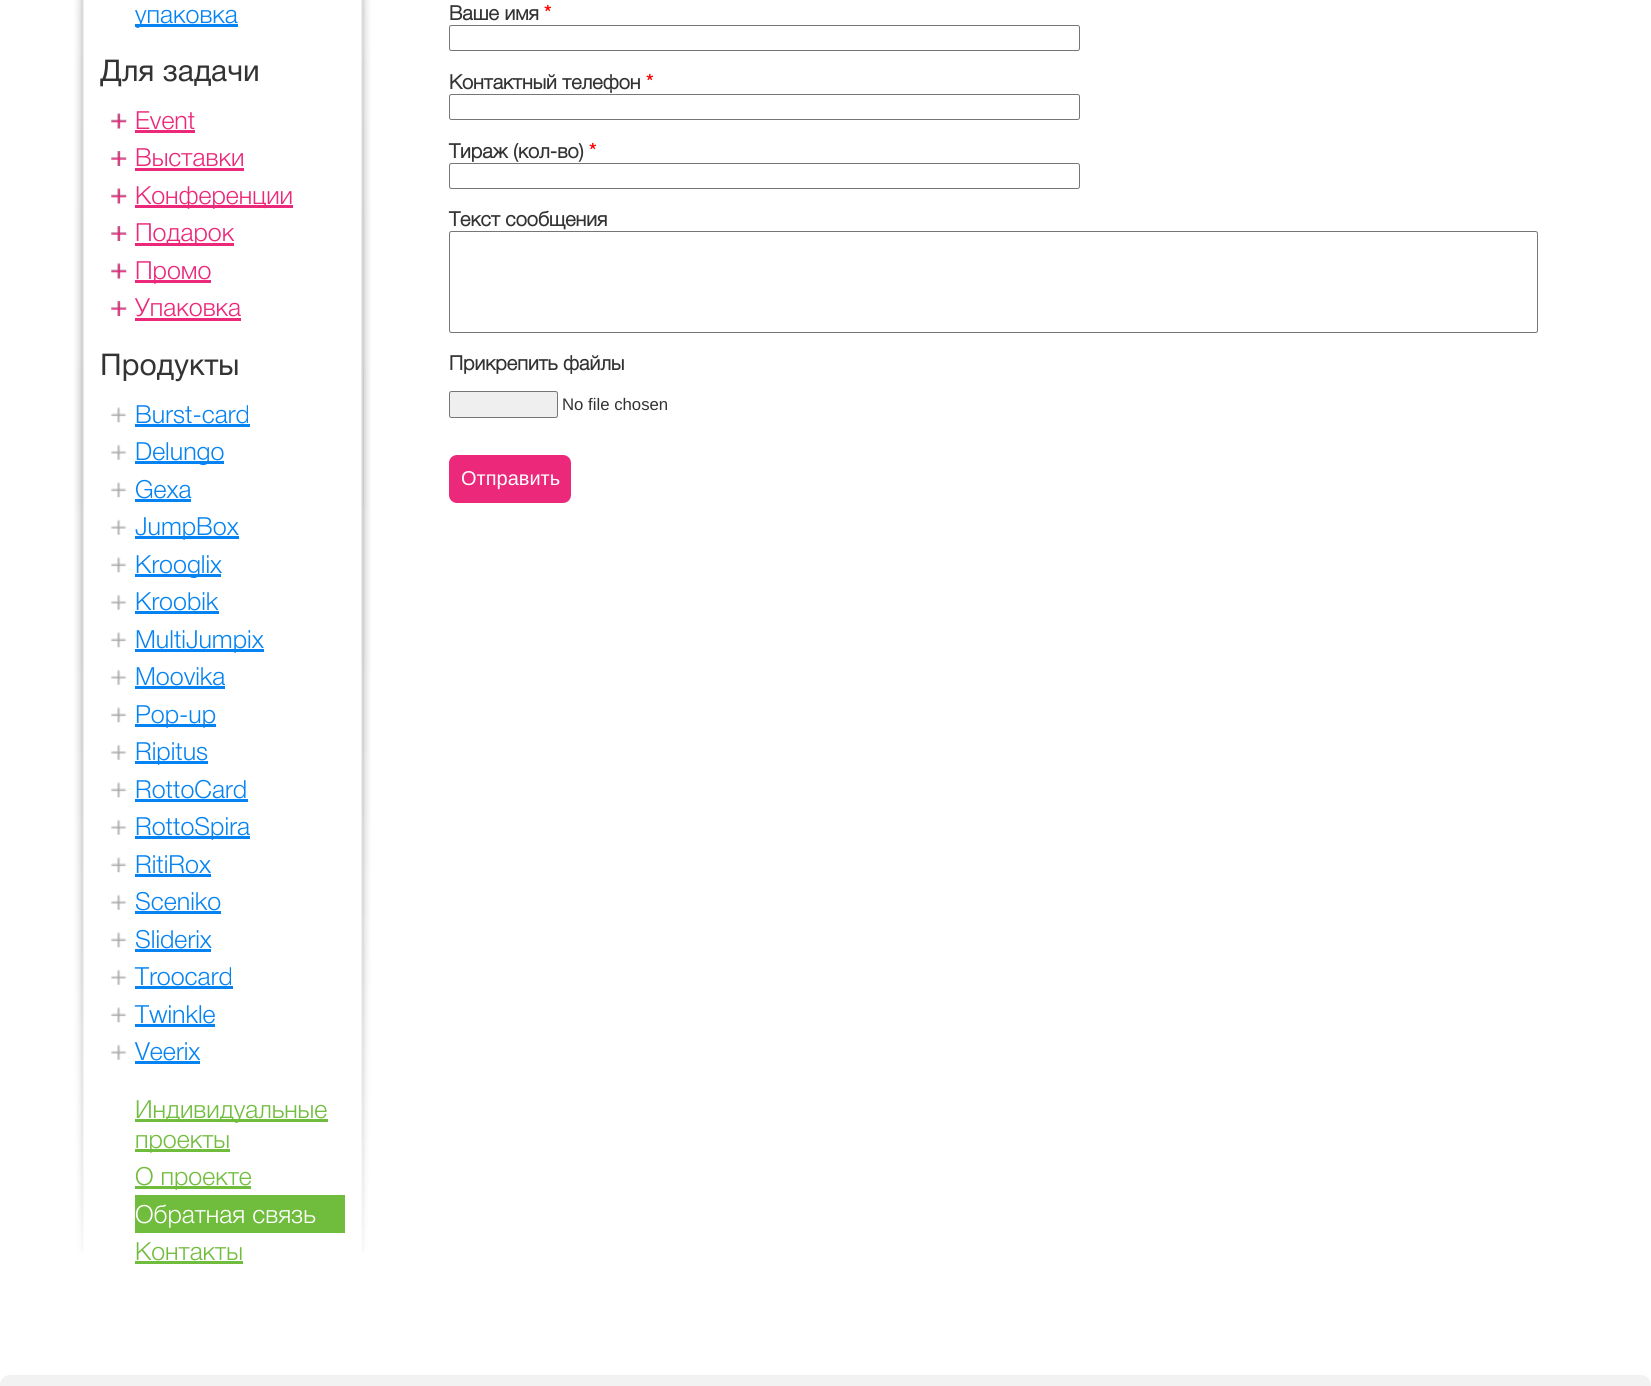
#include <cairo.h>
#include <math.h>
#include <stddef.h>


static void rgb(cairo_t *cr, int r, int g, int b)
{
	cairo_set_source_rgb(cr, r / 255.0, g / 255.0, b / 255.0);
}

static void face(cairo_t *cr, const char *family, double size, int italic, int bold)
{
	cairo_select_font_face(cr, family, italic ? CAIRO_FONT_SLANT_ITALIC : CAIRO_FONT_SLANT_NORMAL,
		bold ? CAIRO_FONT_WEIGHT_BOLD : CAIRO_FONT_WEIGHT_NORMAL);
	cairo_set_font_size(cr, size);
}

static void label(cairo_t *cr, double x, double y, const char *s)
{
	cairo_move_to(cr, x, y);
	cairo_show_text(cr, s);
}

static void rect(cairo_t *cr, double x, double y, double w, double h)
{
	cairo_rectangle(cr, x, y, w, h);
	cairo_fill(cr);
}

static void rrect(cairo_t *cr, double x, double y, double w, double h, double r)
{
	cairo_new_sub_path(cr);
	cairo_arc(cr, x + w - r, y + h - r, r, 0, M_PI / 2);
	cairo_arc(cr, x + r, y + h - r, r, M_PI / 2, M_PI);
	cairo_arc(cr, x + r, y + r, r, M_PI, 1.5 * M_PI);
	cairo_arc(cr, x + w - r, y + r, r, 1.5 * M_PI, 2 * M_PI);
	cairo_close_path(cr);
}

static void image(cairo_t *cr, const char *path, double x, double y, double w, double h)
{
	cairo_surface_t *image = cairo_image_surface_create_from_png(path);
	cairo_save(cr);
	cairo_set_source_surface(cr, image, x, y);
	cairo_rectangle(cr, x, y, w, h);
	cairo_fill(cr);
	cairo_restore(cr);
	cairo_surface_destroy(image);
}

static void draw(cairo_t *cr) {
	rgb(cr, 255, 255, 255);
	cairo_paint(cr);
	image(cr, "image0.png", 74, 0, 297, 1252);
	rgb(cr, 5, 131, 242);
	rect(cr, 135, 24, 103, 3);
	face(cr, "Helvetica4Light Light", 25, 0, 0);
	label(cr, 135, 23, "упаковка");
	face(cr, "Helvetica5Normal", 30, 0, 0);
	rgb(cr, 51, 51, 51);
	label(cr, 100, 81, "Для задачи");
	image(cr, "image1.png", 111, 113, 16, 16);
	face(cr, "Helvetica4Light Light", 25, 0, 0);
	rgb(cr, 235, 40, 122);
	label(cr, 135, 129, "Event");
	rect(cr, 135, 130, 60, 3);
	image(cr, "image2.png", 111, 151, 16, 15);
	label(cr, 135, 166, "Выставки");
	rect(cr, 135, 168, 109, 3);
	image(cr, "image1.png", 111, 188, 16, 16);
	rect(cr, 135, 205, 158, 3);
	label(cr, 135, 204, "Конференции");
	image(cr, "image2.png", 111, 226, 16, 15);
	rect(cr, 135, 243, 99, 3);
	label(cr, 135, 241, "Подарок");
	image(cr, "image1.png", 111, 263, 16, 16);
	rect(cr, 135, 280, 76, 3);
	label(cr, 135, 279, "Промо");
	image(cr, "image2.png", 111, 301, 16, 15);
	label(cr, 135, 316, "Упаковка");
	rect(cr, 135, 318, 106, 3);
	face(cr, "Helvetica5Normal", 30, 0, 0);
	rgb(cr, 51, 51, 51);
	label(cr, 100, 375, "Продукты");
	image(cr, "image3.png", 111, 407, 16, 16);
	face(cr, "Helvetica4Light Light", 25, 0, 0);
	rgb(cr, 5, 131, 242);
	label(cr, 135, 423, "Burst-card");
	rect(cr, 135, 424, 115, 3);
	image(cr, "image4.png", 111, 444, 16, 16);
	rect(cr, 135, 461, 89, 3);
	label(cr, 135, 460, "Delungo");
	image(cr, "image3.png", 111, 482, 16, 16);
	label(cr, 135, 498, "Gexa");
	rect(cr, 135, 499, 56, 3);
	image(cr, "image5.png", 111, 519, 16, 16);
	rect(cr, 135, 536, 104, 3);
	label(cr, 135, 535, "JumpBox");
	image(cr, "image3.png", 111, 557, 16, 16);
	rect(cr, 135, 574, 86, 3);
	label(cr, 135, 573, "Krooglix");
	image(cr, "image4.png", 111, 594, 16, 16);
	label(cr, 135, 610, "Kroobik");
	rect(cr, 135, 611, 84, 3);
	image(cr, "image3.png", 111, 632, 16, 16);
	rect(cr, 135, 649, 129, 3);
	label(cr, 135, 648, "MultiJumpix");
	image(cr, "image4.png", 111, 669, 16, 16);
	label(cr, 135, 685, "Moovika");
	rect(cr, 135, 686, 90, 3);
	image(cr, "image3.png", 111, 707, 16, 16);
	rect(cr, 135, 724, 81, 3);
	label(cr, 135, 723, "Pop-up");
	image(cr, "image4.png", 111, 744, 16, 16);
	rect(cr, 135, 761, 73, 3);
	label(cr, 135, 760, "Ripitus");
	image(cr, "image3.png", 111, 782, 16, 16);
	label(cr, 135, 798, "RottoCard");
	rect(cr, 135, 799, 113, 3);
	image(cr, "image4.png", 111, 819, 16, 16);
	rect(cr, 135, 836, 115, 3);
	label(cr, 135, 835, "RottoSpira");
	image(cr, "image3.png", 111, 857, 16, 16);
	label(cr, 135, 873, "RitiRox");
	rect(cr, 135, 874, 76, 3);
	image(cr, "image4.png", 111, 894, 16, 16);
	label(cr, 135, 910, "Sceniko");
	rect(cr, 135, 911, 86, 3);
	image(cr, "image3.png", 111, 932, 16, 16);
	label(cr, 135, 948, "Sliderix");
	rect(cr, 135, 949, 76, 3);
	image(cr, "image4.png", 111, 969, 16, 16);
	label(cr, 135, 985, "Troocard");
	rect(cr, 135, 986, 98, 3);
	image(cr, "image3.png", 111, 1007, 16, 16);
	label(cr, 135, 1023, "Twinkle");
	rect(cr, 135, 1024, 80, 3);
	image(cr, "image4.png", 111, 1044, 16, 16);
	label(cr, 135, 1060, "Veerix");
	rect(cr, 135, 1061, 65, 3);
	rgb(cr, 112, 188, 60);
	rect(cr, 135, 1119, 193, 3);
	label(cr, 135, 1118, "Индивидуальные");
	rect(cr, 135, 1149, 95, 3);
	label(cr, 135, 1148, "проекты");
	rect(cr, 135, 1186, 116, 3);
	label(cr, 135, 1185, "О проекте");
	rect(cr, 135, 1195, 210, 38);
	rgb(cr, 255, 255, 255);
	label(cr, 135, 1223, "Обратная связь");
	rgb(cr, 112, 188, 60);
	label(cr, 135, 1260, "Контакты");
	rect(cr, 135, 1261, 108, 3);
	face(cr, "Helvetica4Light", 20, 0, 1);
	rgb(cr, 51, 51, 51);
	label(cr, 449, 20, "Ваше имя");
	rgb(cr, 255, 0, 0);
	label(cr, 544, 20, "*");
	rrect(cr, 449.5, 25.5, 630, 25, 2);
	rgb(cr, 118, 118, 118);
	cairo_set_line_width(cr, 1);
	cairo_stroke(cr);
	rgb(cr, 51, 51, 51);
	label(cr, 449, 89, "Контактный телефон");
	rgb(cr, 255, 0, 0);
	label(cr, 646, 89, "*");
	rrect(cr, 449.5, 94.5, 630, 25, 2);
	rgb(cr, 118, 118, 118);
	cairo_stroke(cr);
	rgb(cr, 51, 51, 51);
	label(cr, 449, 158, "Тираж (кол-во)");
	rgb(cr, 255, 0, 0);
	label(cr, 589, 158, "*");
	rrect(cr, 449.5, 163.5, 630, 25, 2);
	rgb(cr, 118, 118, 118);
	cairo_stroke(cr);
	rgb(cr, 51, 51, 51);
	label(cr, 449, 226, "Текст сообщения");
	rrect(cr, 449.5, 231.5, 1088, 101, 2);
	rgb(cr, 118, 118, 118);
	cairo_stroke(cr);
	rgb(cr, 51, 51, 51);
	label(cr, 449, 370, "Прикрепить файлы");
	rgb(cr, 239, 239, 239);
	rrect(cr, 449.5, 391.5, 108, 26, 2);
	cairo_fill_preserve(cr);
	rgb(cr, 118, 118, 118);
	cairo_stroke(cr);
	face(cr, "Liberation Sans", 16.75, 0, 0);
	rgb(cr, 51, 51, 51);
	label(cr, 562, 410, "No file chosen");
	rgb(cr, 235, 40, 122);
	rrect(cr, 449, 455, 122, 48, 8);
	cairo_fill(cr);
	face(cr, "Liberation Sans", 20, 0, 0);
	rgb(cr, 255, 255, 255);
	label(cr, 461, 485, "Отправить");
	rgb(cr, 242, 242, 242);
	rrect(cr, 0, 1375, 1651, 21, 10);
	cairo_fill(cr);
}

int main(void) {
	cairo_surface_t *surface = cairo_image_surface_create(CAIRO_FORMAT_RGB24, 1651, 1386);
	cairo_t *cr = cairo_create(surface);
	cairo_font_options_t *options = cairo_font_options_create();
	cairo_font_options_set_hint_metrics(options, CAIRO_HINT_METRICS_OFF);
	cairo_font_options_set_hint_style(options, CAIRO_HINT_STYLE_NONE);
	cairo_set_font_options(cr, options);
	cairo_set_miter_limit(cr, 4);
	draw(cr);
	cairo_surface_write_to_png(surface, "render.png");
	cairo_font_options_destroy(options);
	cairo_destroy(cr);
	cairo_surface_destroy(surface);
	return 0;
}
